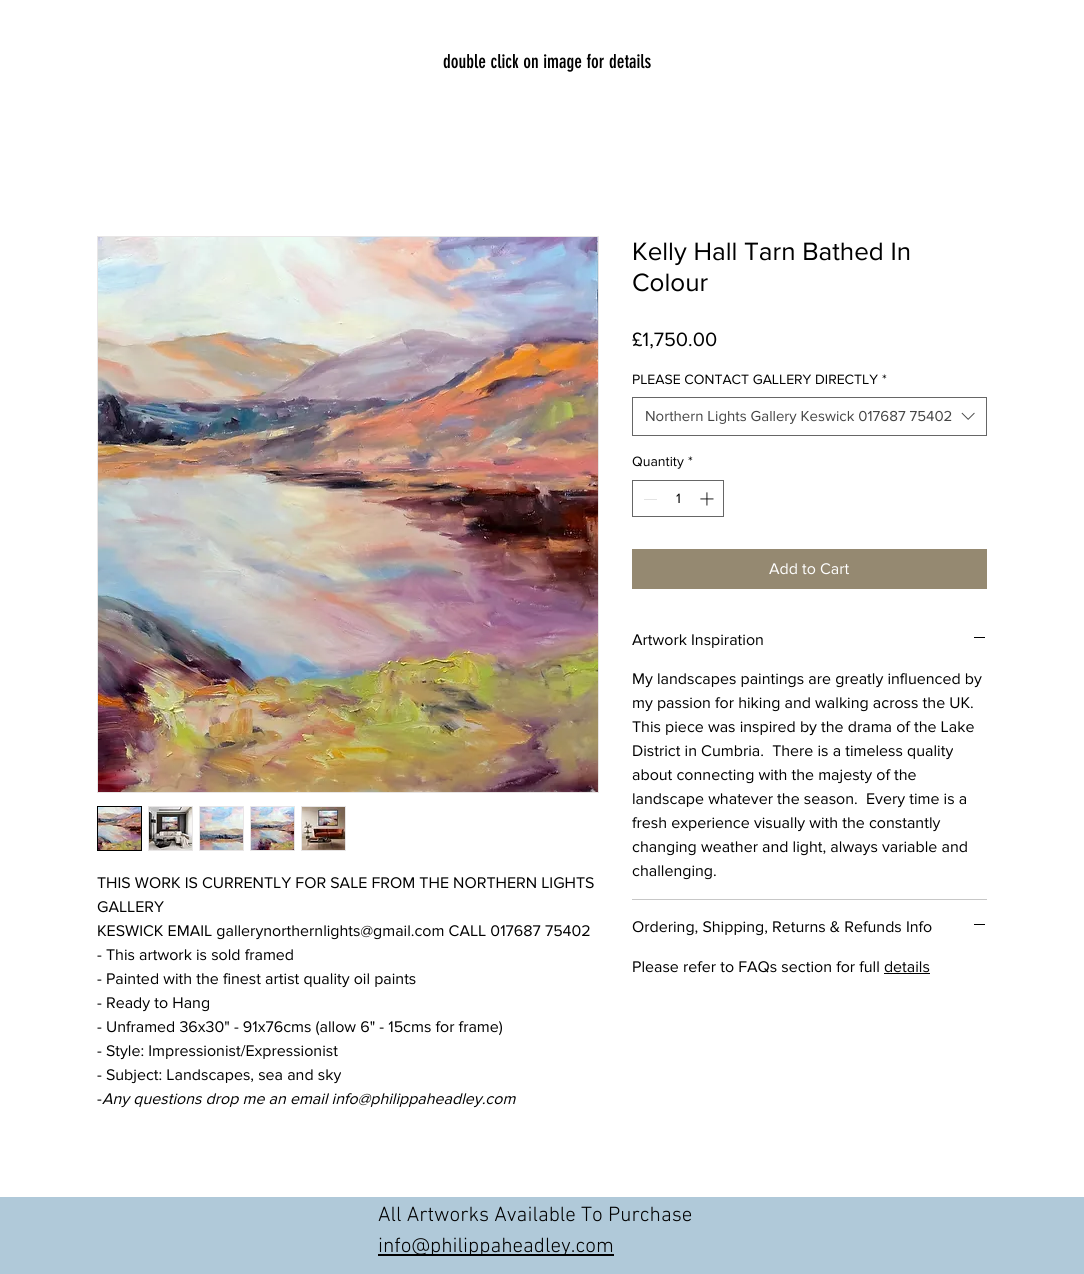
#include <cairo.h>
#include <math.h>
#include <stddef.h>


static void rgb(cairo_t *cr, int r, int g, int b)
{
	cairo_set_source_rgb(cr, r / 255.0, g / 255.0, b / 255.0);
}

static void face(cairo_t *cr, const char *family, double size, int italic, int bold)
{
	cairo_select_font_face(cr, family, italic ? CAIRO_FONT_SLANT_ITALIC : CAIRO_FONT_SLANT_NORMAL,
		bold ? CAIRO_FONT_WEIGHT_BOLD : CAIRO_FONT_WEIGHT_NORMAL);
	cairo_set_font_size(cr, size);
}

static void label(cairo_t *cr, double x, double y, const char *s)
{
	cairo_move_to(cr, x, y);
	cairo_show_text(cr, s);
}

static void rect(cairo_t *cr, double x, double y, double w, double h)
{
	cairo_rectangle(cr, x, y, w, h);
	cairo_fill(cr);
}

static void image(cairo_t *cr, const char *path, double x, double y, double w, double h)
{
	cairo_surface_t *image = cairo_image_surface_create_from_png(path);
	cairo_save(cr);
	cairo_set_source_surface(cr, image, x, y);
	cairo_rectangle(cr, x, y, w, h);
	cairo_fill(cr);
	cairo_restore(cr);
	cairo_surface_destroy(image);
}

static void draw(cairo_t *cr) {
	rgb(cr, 255, 255, 255);
	cairo_paint(cr);
	face(cr, "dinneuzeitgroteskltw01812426", 19, 0, 0);
	rgb(cr, 0, 0, 0);
	label(cr, 443, 68, "double click on image for details");
	cairo_rectangle(cr, 97.5, 236.5, 501, 556);
	rgb(cr, 232, 230, 230);
	cairo_set_line_width(cr, 1);
	cairo_stroke(cr);
	image(cr, "image0.png", 98, 237, 500, 555);
	cairo_rectangle(cr, 97.5, 806.5, 44, 44);
	rgb(cr, 0, 0, 0);
	cairo_stroke(cr);
	image(cr, "image1.png", 98, 807, 43, 43);
	rgb(cr, 232, 230, 230);
	rect(cr, 148, 806, 45, 45);
	image(cr, "image2.png", 149, 807, 43, 43);
	rect(cr, 199, 806, 45, 45);
	image(cr, "image3.png", 200, 807, 43, 43);
	rect(cr, 250, 806, 45, 45);
	image(cr, "image4.png", 251, 807, 43, 43);
	rect(cr, 301, 806, 45, 45);
	image(cr, "image5.png", 302, 807, 43, 43);
	face(cr, "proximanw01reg", 16, 0, 0);
	rgb(cr, 0, 0, 0);
	label(cr, 97, 888, "THIS WORK IS CURRENTLY FOR SALE FROM THE NORTHERN LIGHTS");
	label(cr, 97, 912, "GALLERY");
	label(cr, 97, 936, "KESWICK EMAIL gallerynorthernlights@gmail.com CALL 017687 75402");
	label(cr, 97, 960, "- This artwork is sold framed");
	label(cr, 97, 984, "- Painted with the finest artist quality oil paints");
	label(cr, 97, 1008, "- Ready to Hang");
	label(cr, 97, 1032, "- Unframed 36x30\" - 91x76cms (allow 6\" - 15cms for frame)");
	label(cr, 97, 1056, "- Style: Impressionist/Expressionist");
	label(cr, 97, 1080, "- Subject: Landscapes, sea and sky");
	label(cr, 97, 1104, "-");
	face(cr, "proximanw01reg", 16, 1, 0);
	label(cr, 102, 1104, "Any questions drop me an email info@philippaheadley.com");
	face(cr, "proximanw01reg", 26, 0, 0);
	label(cr, 632, 260, "Kelly Hall Tarn Bathed In");
	label(cr, 632, 291, "Colour");
	face(cr, "proximanw01reg", 20, 0, 0);
	label(cr, 632, 346, "£1,750.00");
	face(cr, "proximanw01reg", 14, 0, 0);
	label(cr, 632, 384, "PLEASE CONTACT GALLERY DIRECTLY");
	label(cr, 882, 384, "*");
	cairo_rectangle(cr, 632.5, 397.5, 354, 38);
	rgb(cr, 102, 102, 102);
	cairo_stroke(cr);
	face(cr, "proximanw01reg", 15, 0, 0);
	rgb(cr, 68, 68, 68);
	label(cr, 645, 421, "Northern Lights Gallery Keswick 017687 75402");
	image(cr, "image6.png", 961, 412, 14, 8);
	face(cr, "proximanw01reg", 14, 0, 0);
	rgb(cr, 0, 0, 0);
	label(cr, 632, 466, "Quantity");
	label(cr, 688, 466, "*");
	cairo_rectangle(cr, 632.5, 480.5, 91, 36);
	rgb(cr, 102, 102, 102);
	cairo_stroke(cr);
	rgb(cr, 227, 227, 227);
	rect(cr, 644, 499, 13, 1);
	rgb(cr, 0, 0, 0);
	label(cr, 676, 503, "1");
	image(cr, "image7.png", 700, 492, 14, 14);
	rgb(cr, 149, 137, 113);
	rect(cr, 632, 549, 355, 40);
	face(cr, "proximanw01reg", 16, 0, 0);
	rgb(cr, 255, 255, 255);
	label(cr, 769, 574, "Add to Cart");
	rgb(cr, 199, 199, 199);
	rect(cr, 632, 899, 355, 1);
	rgb(cr, 0, 0, 0);
	label(cr, 632, 645, "Artwork Inspiration");
	rect(cr, 974, 637, 11, 1);
	label(cr, 632, 684, "My landscapes paintings are greatly influenced by");
	label(cr, 632, 708, "my passion for hiking and walking across the UK.");
	label(cr, 632, 732, "This piece was inspired by the drama of the Lake");
	label(cr, 632, 756, "District in Cumbria.  There is a timeless quality");
	label(cr, 632, 780, "about connecting with the majesty of the");
	label(cr, 632, 804, "landscape whatever the season.  Every time is a");
	label(cr, 632, 828, "fresh experience visually with the constantly");
	label(cr, 632, 852, "changing weather and light, always variable and");
	label(cr, 632, 876, "challenging.");
	label(cr, 632, 932, "Ordering, Shipping, Returns & Refunds Info");
	rect(cr, 974, 924, 11, 1);
	label(cr, 632, 972, "Please refer to FAQs section for full details");
	rect(cr, 884, 973, 46, 1);
	rgb(cr, 176, 201, 217);
	rect(cr, 0, 1197, 1084, 77);
	face(cr, "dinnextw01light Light", 21, 0, 0);
	rgb(cr, 0, 0, 0);
	label(cr, 378, 1221, "All Artworks Available To Purchase");
	rect(cr, 378, 1254, 236, 2);
	label(cr, 378, 1252, "info@philippaheadley.com");
}

int main(void) {
	cairo_surface_t *surface = cairo_image_surface_create(CAIRO_FORMAT_RGB24, 1084, 1274);
	cairo_t *cr = cairo_create(surface);
	cairo_font_options_t *options = cairo_font_options_create();
	cairo_font_options_set_hint_metrics(options, CAIRO_HINT_METRICS_OFF);
	cairo_font_options_set_hint_style(options, CAIRO_HINT_STYLE_NONE);
	cairo_set_font_options(cr, options);
	cairo_set_miter_limit(cr, 4);
	draw(cr);
	cairo_surface_write_to_png(surface, "render.png");
	cairo_font_options_destroy(options);
	cairo_destroy(cr);
	cairo_surface_destroy(surface);
	return 0;
}
